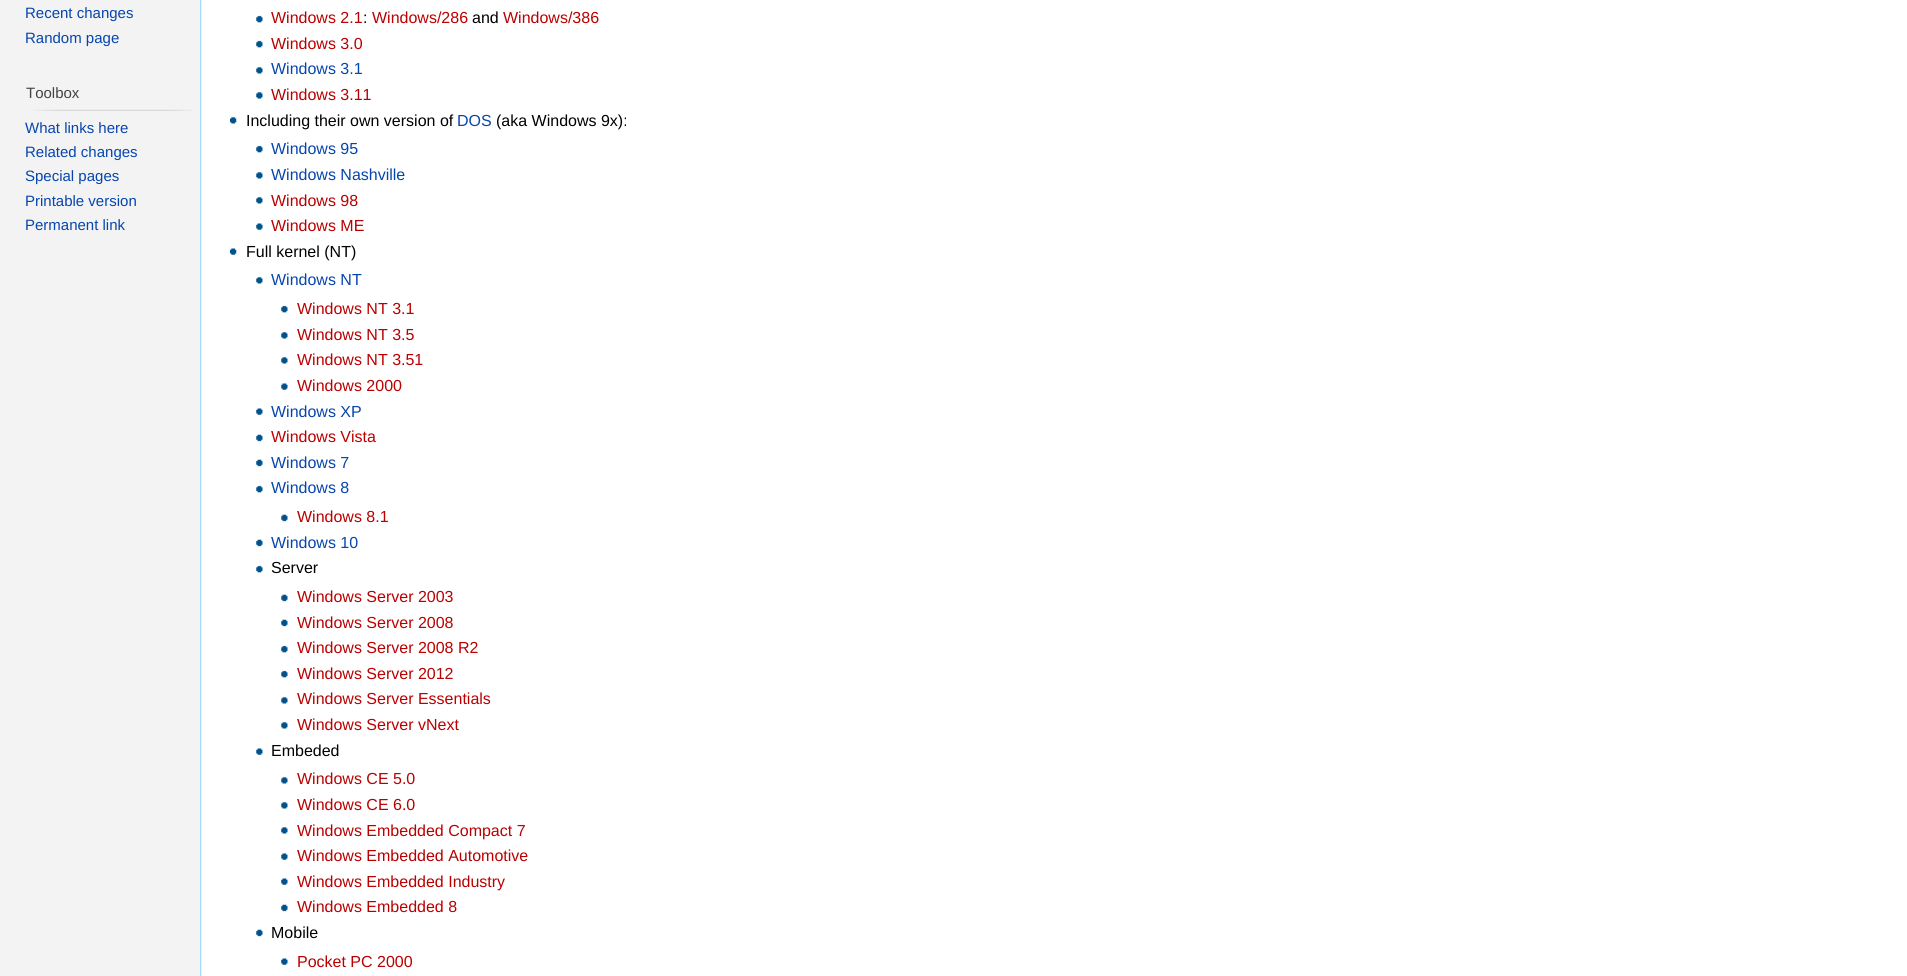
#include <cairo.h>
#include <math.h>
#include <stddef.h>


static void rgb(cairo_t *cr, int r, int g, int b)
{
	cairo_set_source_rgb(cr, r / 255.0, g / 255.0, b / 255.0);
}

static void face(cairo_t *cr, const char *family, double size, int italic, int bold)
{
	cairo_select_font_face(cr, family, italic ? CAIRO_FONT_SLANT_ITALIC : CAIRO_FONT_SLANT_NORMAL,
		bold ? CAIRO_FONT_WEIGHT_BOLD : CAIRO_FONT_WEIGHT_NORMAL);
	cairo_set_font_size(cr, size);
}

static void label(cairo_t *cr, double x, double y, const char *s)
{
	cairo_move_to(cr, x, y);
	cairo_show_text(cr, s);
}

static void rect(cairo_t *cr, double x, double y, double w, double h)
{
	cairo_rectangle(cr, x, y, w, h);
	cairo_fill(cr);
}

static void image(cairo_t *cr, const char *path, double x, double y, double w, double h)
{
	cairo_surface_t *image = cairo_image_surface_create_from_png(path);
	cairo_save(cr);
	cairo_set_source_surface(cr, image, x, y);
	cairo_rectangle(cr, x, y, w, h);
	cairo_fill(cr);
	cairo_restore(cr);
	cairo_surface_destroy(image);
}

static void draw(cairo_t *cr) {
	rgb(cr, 243, 243, 243);
	cairo_paint(cr);
	face(cr, "Liberation Sans", 15, 0, 0);
	rgb(cr, 6, 69, 173);
	label(cr, 25, 18, "Recent changes");
	label(cr, 25, 43, "Random page");
	rgb(cr, 68, 68, 68);
	label(cr, 26, 98, "Toolbox");
	image(cr, "image0.png", 33, 109, 160, 2);
	rgb(cr, 6, 69, 173);
	label(cr, 25, 133, "What links here");
	label(cr, 25, 157, "Related changes");
	label(cr, 25, 181, "Special pages");
	label(cr, 25, 206, "Printable version");
	label(cr, 25, 230, "Permanent link");
	rgb(cr, 255, 255, 255);
	rect(cr, 201, 0, 1706, 976);
	image(cr, "image1.png", 200, 0, 2, 976);
	image(cr, "image2.png", 256, 15, 7, 8);
	face(cr, "Liberation Sans", 16, 0, 0);
	rgb(cr, 186, 0, 0);
	label(cr, 271, 23, "Windows 2.1");
	rgb(cr, 0, 0, 0);
	label(cr, 363, 23, ":");
	rgb(cr, 186, 0, 0);
	label(cr, 372, 23, "Windows/286");
	rgb(cr, 0, 0, 0);
	label(cr, 472, 23, "and");
	rgb(cr, 186, 0, 0);
	label(cr, 503, 23, "Windows/386");
	image(cr, "image2.png", 256, 40, 7, 8);
	label(cr, 271, 49, "Windows 3.0");
	image(cr, "image3.png", 256, 67, 7, 7);
	rgb(cr, 6, 69, 173);
	label(cr, 271, 74, "Windows 3.1");
	image(cr, "image4.png", 256, 92, 7, 7);
	rgb(cr, 186, 0, 0);
	label(cr, 271, 100, "Windows 3.11");
	image(cr, "image5.png", 230, 117, 7, 7);
	rgb(cr, 0, 0, 0);
	label(cr, 246, 126, "Including their own version of");
	rgb(cr, 6, 69, 173);
	label(cr, 457, 126, "DOS");
	rgb(cr, 0, 0, 0);
	label(cr, 496, 126, "(aka Windows 9x):");
	image(cr, "image2.png", 256, 145, 7, 8);
	rgb(cr, 6, 69, 173);
	label(cr, 271, 154, "Windows 95");
	image(cr, "image3.png", 256, 172, 7, 7);
	label(cr, 271, 180, "Windows Nashville");
	image(cr, "image3.png", 256, 197, 7, 7);
	rgb(cr, 186, 0, 0);
	label(cr, 271, 206, "Windows 98");
	image(cr, "image6.png", 256, 223, 7, 7);
	label(cr, 271, 231, "Windows ME");
	image(cr, "image7.png", 230, 248, 7, 7);
	rgb(cr, 0, 0, 0);
	label(cr, 246, 257, "Full kernel (NT)");
	image(cr, "image3.png", 256, 277, 7, 7);
	rgb(cr, 6, 69, 173);
	label(cr, 271, 285, "Windows NT");
	image(cr, "image8.png", 281, 305, 7, 8);
	rgb(cr, 186, 0, 0);
	label(cr, 297, 314, "Windows NT 3.1");
	image(cr, "image9.png", 281, 332, 7, 7);
	label(cr, 297, 340, "Windows NT 3.5");
	image(cr, "image9.png", 281, 357, 7, 7);
	label(cr, 297, 365, "Windows NT 3.51");
	image(cr, "image10.png", 281, 383, 7, 7);
	label(cr, 297, 391, "Windows 2000");
	image(cr, "image6.png", 256, 408, 7, 7);
	rgb(cr, 6, 69, 173);
	label(cr, 271, 417, "Windows XP");
	image(cr, "image11.png", 256, 434, 7, 8);
	rgb(cr, 186, 0, 0);
	label(cr, 271, 442, "Windows Vista");
	image(cr, "image11.png", 256, 459, 7, 8);
	rgb(cr, 6, 69, 173);
	label(cr, 271, 468, "Windows 7");
	image(cr, "image2.png", 256, 485, 7, 8);
	label(cr, 271, 493, "Windows 8");
	image(cr, "image12.png", 281, 514, 7, 8);
	rgb(cr, 186, 0, 0);
	label(cr, 297, 522, "Windows 8.1");
	image(cr, "image11.png", 256, 539, 7, 8);
	rgb(cr, 6, 69, 173);
	label(cr, 271, 548, "Windows 10");
	image(cr, "image2.png", 256, 565, 7, 8);
	rgb(cr, 0, 0, 0);
	label(cr, 271, 573, "Server");
	image(cr, "image12.png", 281, 594, 7, 8);
	rgb(cr, 186, 0, 0);
	label(cr, 297, 602, "Windows Server 2003");
	image(cr, "image12.png", 281, 619, 7, 8);
	label(cr, 297, 628, "Windows Server 2008");
	image(cr, "image8.png", 281, 645, 7, 8);
	label(cr, 297, 653, "Windows Server 2008 R2");
	image(cr, "image8.png", 281, 670, 7, 8);
	label(cr, 297, 679, "Windows Server 2012");
	image(cr, "image9.png", 281, 697, 7, 7);
	label(cr, 297, 704, "Windows Server Essentials");
	image(cr, "image9.png", 281, 722, 7, 7);
	label(cr, 297, 730, "Windows Server vNext");
	image(cr, "image6.png", 256, 748, 7, 7);
	rgb(cr, 0, 0, 0);
	label(cr, 271, 756, "Embeded");
	image(cr, "image9.png", 281, 777, 7, 7);
	rgb(cr, 186, 0, 0);
	label(cr, 297, 784, "Windows CE 5.0");
	image(cr, "image9.png", 281, 802, 7, 7);
	label(cr, 297, 810, "Windows CE 6.0");
	image(cr, "image9.png", 281, 827, 7, 7);
	label(cr, 297, 836, "Windows Embedded Compact 7");
	image(cr, "image10.png", 281, 853, 7, 7);
	label(cr, 297, 861, "Windows Embedded Automotive");
	image(cr, "image10.png", 281, 878, 7, 7);
	label(cr, 297, 887, "Windows Embedded Industry");
	image(cr, "image12.png", 281, 904, 7, 8);
	label(cr, 297, 912, "Windows Embedded 8");
	image(cr, "image11.png", 256, 929, 7, 8);
	rgb(cr, 0, 0, 0);
	label(cr, 271, 938, "Mobile");
	image(cr, "image10.png", 281, 958, 7, 7);
	rgb(cr, 186, 0, 0);
	label(cr, 297, 967, "Pocket PC 2000");
}

int main(void) {
	cairo_surface_t *surface = cairo_image_surface_create(CAIRO_FORMAT_RGB24, 1907, 976);
	cairo_t *cr = cairo_create(surface);
	cairo_font_options_t *options = cairo_font_options_create();
	cairo_font_options_set_hint_metrics(options, CAIRO_HINT_METRICS_OFF);
	cairo_font_options_set_hint_style(options, CAIRO_HINT_STYLE_NONE);
	cairo_set_font_options(cr, options);
	cairo_set_miter_limit(cr, 4);
	draw(cr);
	cairo_surface_write_to_png(surface, "render.png");
	cairo_font_options_destroy(options);
	cairo_destroy(cr);
	cairo_surface_destroy(surface);
	return 0;
}
